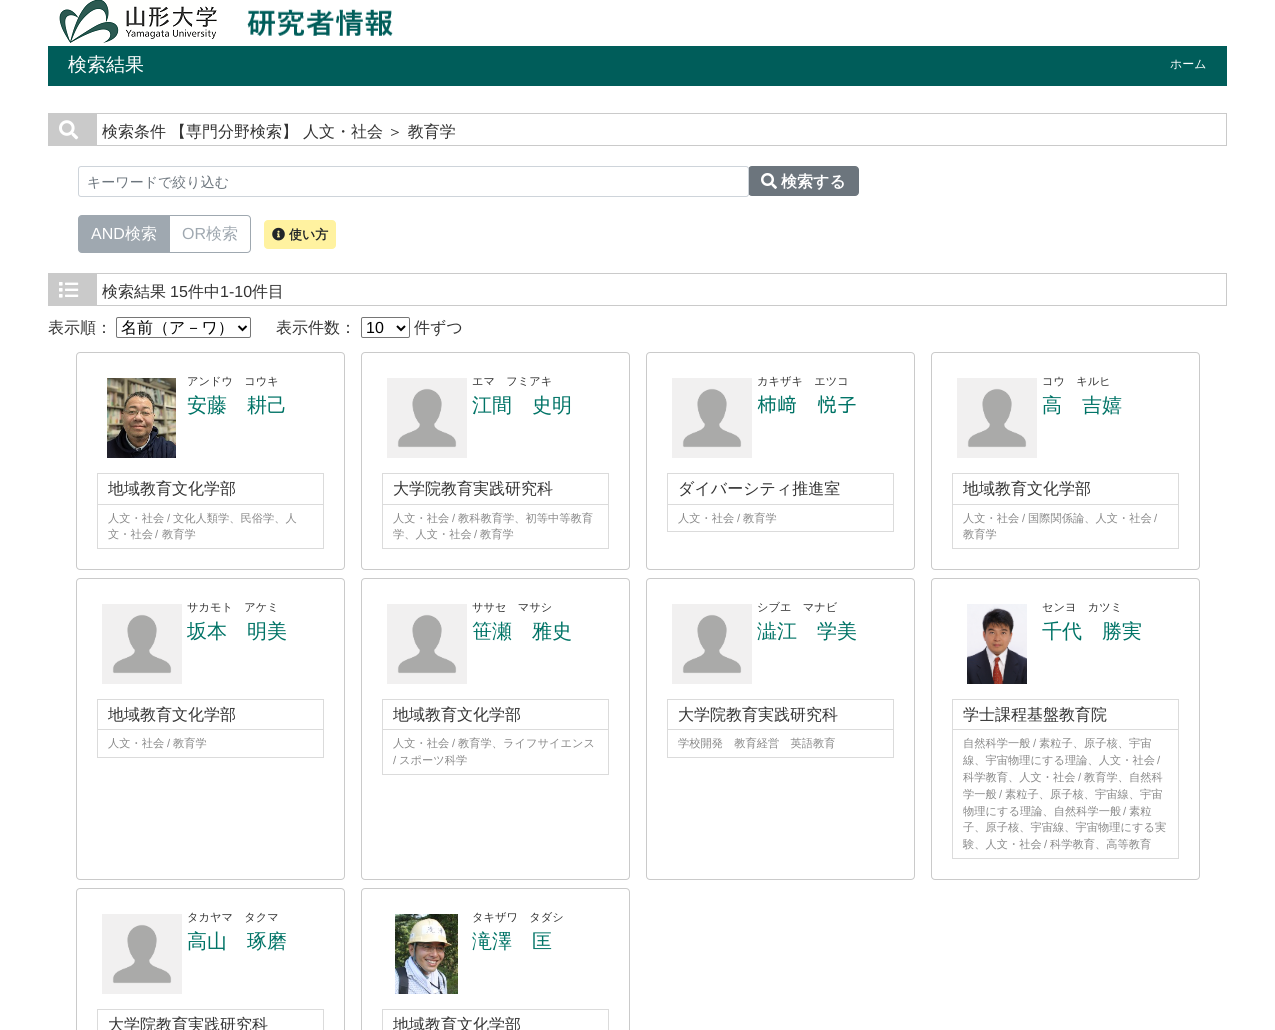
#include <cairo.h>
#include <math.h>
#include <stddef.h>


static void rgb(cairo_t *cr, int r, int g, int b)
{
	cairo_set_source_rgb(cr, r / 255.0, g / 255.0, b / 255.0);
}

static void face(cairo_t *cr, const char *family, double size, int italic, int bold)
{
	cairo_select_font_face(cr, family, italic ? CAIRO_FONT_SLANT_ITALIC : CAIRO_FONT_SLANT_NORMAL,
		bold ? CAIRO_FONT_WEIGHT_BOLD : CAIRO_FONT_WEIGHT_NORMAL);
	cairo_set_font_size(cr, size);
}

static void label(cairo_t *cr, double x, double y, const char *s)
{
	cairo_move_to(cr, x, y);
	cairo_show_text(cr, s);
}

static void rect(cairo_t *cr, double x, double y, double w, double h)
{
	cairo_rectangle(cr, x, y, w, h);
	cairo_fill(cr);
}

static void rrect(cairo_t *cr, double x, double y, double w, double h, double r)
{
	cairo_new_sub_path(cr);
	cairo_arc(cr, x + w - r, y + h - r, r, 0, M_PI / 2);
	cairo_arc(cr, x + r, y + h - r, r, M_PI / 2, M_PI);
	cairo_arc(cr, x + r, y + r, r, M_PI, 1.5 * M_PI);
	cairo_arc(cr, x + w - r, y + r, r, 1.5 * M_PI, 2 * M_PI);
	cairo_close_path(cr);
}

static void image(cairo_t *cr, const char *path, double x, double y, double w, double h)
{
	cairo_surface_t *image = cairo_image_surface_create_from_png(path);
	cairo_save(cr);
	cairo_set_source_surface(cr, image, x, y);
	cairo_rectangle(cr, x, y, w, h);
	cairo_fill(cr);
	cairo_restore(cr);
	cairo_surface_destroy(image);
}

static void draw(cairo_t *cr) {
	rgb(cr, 255, 255, 255);
	cairo_paint(cr);
	image(cr, "image0.png", 59, 0, 158, 43);
	image(cr, "image1.png", 247, 9, 146, 27);
	rgb(cr, 0, 93, 90);
	rect(cr, 48, 46, 1179, 40);
	face(cr, "WenQuanYi Zen Hei Medium", 19, 0, 0);
	rgb(cr, 255, 255, 255);
	label(cr, 68, 71, "検索結果");
	face(cr, "WenQuanYi Zen Hei Medium", 12, 0, 0);
	label(cr, 1170, 68, "ホーム");
	cairo_rectangle(cr, 48.5, 113.5, 1178, 32);
	rgb(cr, 202, 202, 202);
	cairo_set_line_width(cr, 1);
	cairo_stroke(cr);
	rect(cr, 49, 114, 48, 31);
	image(cr, "image2.png", 59, 120, 20, 20);
	face(cr, "WenQuanYi Zen Hei Medium", 16, 0, 0);
	rgb(cr, 51, 51, 51);
	label(cr, 102, 137, "検索条件");
	label(cr, 170, 137, "【専門分野検索】");
	label(cr, 303, 137, "人文・社会");
	label(cr, 387, 137, "＞ 教育学");
	rgb(cr, 108, 117, 125);
	rrect(cr, 748.5, 166.5, 110, 29, 3.5);
	cairo_fill_preserve(cr);
	cairo_stroke(cr);
	rrect(cr, 78.5, 166.5, 670, 30, 2.5);
	rgb(cr, 206, 212, 218);
	cairo_stroke(cr);
	face(cr, "WenQuanYi Zen Hei Medium", 14, 0, 0);
	rgb(cr, 108, 117, 125);
	label(cr, 87, 187, "キーワードで絞り込む");
	image(cr, "image3.png", 761, 173, 16, 16);
	face(cr, "WenQuanYi Zen Hei", 16, 0, 1);
	rgb(cr, 255, 255, 255);
	label(cr, 781, 187, "検索する");
	cairo_new_path(cr);
	cairo_move_to(cr, 169.5, 215.5);
	cairo_line_to(cr, 247, 215.5);
	cairo_curve_to(cr, 249, 215.5, 250.5, 217, 250.5, 219);
	cairo_line_to(cr, 250.5, 249);
	cairo_curve_to(cr, 250.5, 251, 249, 252.5, 247, 252.5);
	cairo_line_to(cr, 169.5, 252.5);
	cairo_close_path(cr);
	rgb(cr, 159, 168, 176);
	cairo_stroke(cr);
	cairo_new_path(cr);
	cairo_move_to(cr, 82, 215.5);
	cairo_line_to(cr, 169.5, 215.5);
	cairo_line_to(cr, 169.5, 252.5);
	cairo_line_to(cr, 82, 252.5);
	cairo_curve_to(cr, 80, 252.5, 78.5, 251, 78.5, 249);
	cairo_line_to(cr, 78.5, 219);
	cairo_curve_to(cr, 78.5, 217, 80, 215.5, 82, 215.5);
	cairo_close_path(cr);
	cairo_fill_preserve(cr);
	cairo_stroke(cr);
	face(cr, "Liberation Sans", 16, 0, 0);
	rgb(cr, 255, 255, 255);
	label(cr, 91, 239, "AND");
	face(cr, "WenQuanYi Zen Hei Medium", 16, 0, 0);
	label(cr, 125, 239, "検索");
	face(cr, "Liberation Sans", 16, 0, 0);
	rgb(cr, 159, 168, 176);
	label(cr, 182, 239, "OR");
	face(cr, "WenQuanYi Zen Hei Medium", 16, 0, 0);
	label(cr, 206, 239, "検索");
	rgb(cr, 255, 242, 160);
	rrect(cr, 264, 220, 72, 29, 4);
	cairo_fill(cr);
	image(cr, "image4.png", 272, 227, 13, 14);
	face(cr, "WenQuanYi Zen Hei", 13, 0, 1);
	rgb(cr, 33, 37, 41);
	label(cr, 289, 239, "使い方");
	cairo_rectangle(cr, 48.5, 273.5, 1178, 32);
	rgb(cr, 202, 202, 202);
	cairo_stroke(cr);
	rect(cr, 49, 274, 48, 31);
	image(cr, "image5.png", 59, 282, 20, 16);
	face(cr, "WenQuanYi Zen Hei Medium", 16, 0, 0);
	rgb(cr, 51, 51, 51);
	label(cr, 102, 297, "検索結果");
	face(cr, "Liberation Sans", 16, 0, 0);
	label(cr, 170, 297, "15");
	face(cr, "WenQuanYi Zen Hei Medium", 16, 0, 0);
	label(cr, 188, 297, "件中");
	face(cr, "Liberation Sans", 16, 0, 0);
	label(cr, 220, 297, "1-10");
	face(cr, "WenQuanYi Zen Hei Medium", 16, 0, 0);
	label(cr, 252, 297, "件目");
	label(cr, 48, 333, "表示順：");
	rrect(cr, 116.5, 317.5, 134, 20, 1.5);
	rgb(cr, 118, 118, 118);
	cairo_stroke(cr);
	cairo_new_path(cr);
	cairo_move_to(cr, 238.5, 326);
	cairo_line_to(cr, 242.5, 330);
	cairo_line_to(cr, 246.5, 326);
	rgb(cr, 0, 0, 0);
	cairo_set_line_width(cr, 2);
	cairo_stroke(cr);
	label(cr, 121, 333, "名前（ア－ワ）");
	rgb(cr, 51, 51, 51);
	label(cr, 276, 333, "表示件数：");
	rrect(cr, 361.5, 317.5, 48, 20, 1.5);
	rgb(cr, 118, 118, 118);
	cairo_set_line_width(cr, 1);
	cairo_stroke(cr);
	cairo_new_path(cr);
	cairo_move_to(cr, 397, 326);
	cairo_line_to(cr, 401, 330);
	cairo_line_to(cr, 405, 326);
	rgb(cr, 0, 0, 0);
	cairo_set_line_width(cr, 2);
	cairo_stroke(cr);
	face(cr, "Liberation Sans", 16, 0, 0);
	label(cr, 366, 333, "10");
	face(cr, "WenQuanYi Zen Hei Medium", 16, 0, 0);
	rgb(cr, 51, 51, 51);
	label(cr, 414, 333, "件ずつ");
	rrect(cr, 76.5, 352.5, 268, 217, 3.5);
	rgb(cr, 202, 202, 202);
	cairo_set_line_width(cr, 1);
	cairo_stroke(cr);
	image(cr, "image6.png", 107, 378, 69, 80);
	face(cr, "WenQuanYi Zen Hei Medium", 11.25, 0, 0);
	rgb(cr, 51, 51, 51);
	label(cr, 187, 385, "アンドウ　コウキ");
	face(cr, "WenQuanYi Zen Hei Medium", 20, 0, 0);
	rgb(cr, 0, 115, 102);
	label(cr, 187, 412, "安藤　耕己");
	cairo_rectangle(cr, 97.5, 473.5, 226, 75);
	rgb(cr, 219, 219, 219);
	cairo_stroke(cr);
	rect(cr, 98, 504, 225, 1);
	face(cr, "WenQuanYi Zen Hei Medium", 16, 0, 0);
	rgb(cr, 51, 51, 51);
	label(cr, 108, 494, "地域教育文化学部");
	face(cr, "WenQuanYi Zen Hei Medium", 11.25, 0, 0);
	rgb(cr, 136, 136, 136);
	label(cr, 108, 522, "人文・社会");
	face(cr, "Liberation Sans", 11.25, 0, 0);
	label(cr, 167, 522, "/");
	face(cr, "WenQuanYi Zen Hei Medium", 11.25, 0, 0);
	label(cr, 173, 522, "文化人類学、民俗学、人");
	label(cr, 108, 538, "文・社会");
	face(cr, "Liberation Sans", 11.25, 0, 0);
	label(cr, 155, 538, "/");
	face(cr, "WenQuanYi Zen Hei Medium", 11.25, 0, 0);
	label(cr, 162, 538, "教育学");
	rrect(cr, 361.5, 352.5, 268, 217, 3.5);
	rgb(cr, 202, 202, 202);
	cairo_stroke(cr);
	image(cr, "image7.png", 387, 378, 80, 80);
	rgb(cr, 51, 51, 51);
	label(cr, 472, 385, "エマ　フミアキ");
	face(cr, "WenQuanYi Zen Hei Medium", 20, 0, 0);
	rgb(cr, 0, 115, 102);
	label(cr, 472, 412, "江間　史明");
	cairo_rectangle(cr, 382.5, 473.5, 226, 75);
	rgb(cr, 219, 219, 219);
	cairo_stroke(cr);
	rect(cr, 383, 504, 225, 1);
	face(cr, "WenQuanYi Zen Hei Medium", 16, 0, 0);
	rgb(cr, 51, 51, 51);
	label(cr, 393, 494, "大学院教育実践研究科");
	face(cr, "WenQuanYi Zen Hei Medium", 11.25, 0, 0);
	rgb(cr, 136, 136, 136);
	label(cr, 393, 522, "人文・社会");
	face(cr, "Liberation Sans", 11.25, 0, 0);
	label(cr, 452, 522, "/");
	face(cr, "WenQuanYi Zen Hei Medium", 11.25, 0, 0);
	label(cr, 458, 522, "教科教育学、初等中等教育");
	label(cr, 393, 538, "学、人文・社会");
	face(cr, "Liberation Sans", 11.25, 0, 0);
	label(cr, 474, 538, "/");
	face(cr, "WenQuanYi Zen Hei Medium", 11.25, 0, 0);
	label(cr, 480, 538, "教育学");
	rrect(cr, 646.5, 352.5, 268, 217, 3.5);
	rgb(cr, 202, 202, 202);
	cairo_stroke(cr);
	image(cr, "image7.png", 672, 378, 80, 80);
	rgb(cr, 51, 51, 51);
	label(cr, 757, 385, "カキザキ　エツコ");
	face(cr, "IPAPGothic", 20, 0, 0);
	rgb(cr, 0, 115, 102);
	label(cr, 757, 412, "柿﨑　悦子");
	cairo_rectangle(cr, 667.5, 473.5, 226, 58);
	rgb(cr, 219, 219, 219);
	cairo_stroke(cr);
	rect(cr, 668, 504, 225, 1);
	face(cr, "WenQuanYi Zen Hei Medium", 16, 0, 0);
	rgb(cr, 51, 51, 51);
	label(cr, 678, 494, "ダイバーシティ推進室");
	face(cr, "WenQuanYi Zen Hei Medium", 11.25, 0, 0);
	rgb(cr, 136, 136, 136);
	label(cr, 678, 522, "人文・社会");
	face(cr, "Liberation Sans", 11.25, 0, 0);
	label(cr, 737, 522, "/");
	face(cr, "WenQuanYi Zen Hei Medium", 11.25, 0, 0);
	label(cr, 743, 522, "教育学");
	rrect(cr, 931.5, 352.5, 268, 217, 3.5);
	rgb(cr, 202, 202, 202);
	cairo_stroke(cr);
	image(cr, "image7.png", 957, 378, 80, 80);
	rgb(cr, 51, 51, 51);
	label(cr, 1042, 385, "コウ　キルヒ");
	face(cr, "WenQuanYi Zen Hei Medium", 20, 0, 0);
	rgb(cr, 0, 115, 102);
	label(cr, 1042, 412, "高　吉嬉");
	cairo_rectangle(cr, 952.5, 473.5, 226, 75);
	rgb(cr, 219, 219, 219);
	cairo_stroke(cr);
	rect(cr, 953, 504, 225, 1);
	face(cr, "WenQuanYi Zen Hei Medium", 16, 0, 0);
	rgb(cr, 51, 51, 51);
	label(cr, 963, 494, "地域教育文化学部");
	face(cr, "WenQuanYi Zen Hei Medium", 11.25, 0, 0);
	rgb(cr, 136, 136, 136);
	label(cr, 963, 522, "人文・社会");
	face(cr, "Liberation Sans", 11.25, 0, 0);
	label(cr, 1022, 522, "/");
	face(cr, "WenQuanYi Zen Hei Medium", 11.25, 0, 0);
	label(cr, 1028, 522, "国際関係論、人文・社会");
	face(cr, "Liberation Sans", 11.25, 0, 0);
	label(cr, 1154, 522, "/");
	face(cr, "WenQuanYi Zen Hei Medium", 11.25, 0, 0);
	label(cr, 963, 538, "教育学");
	rrect(cr, 76.5, 578.5, 268, 301, 3.5);
	rgb(cr, 202, 202, 202);
	cairo_stroke(cr);
	image(cr, "image7.png", 102, 604, 80, 80);
	rgb(cr, 51, 51, 51);
	label(cr, 187, 611, "サカモト　アケミ");
	face(cr, "WenQuanYi Zen Hei Medium", 20, 0, 0);
	rgb(cr, 0, 115, 102);
	label(cr, 187, 638, "坂本　明美");
	cairo_rectangle(cr, 97.5, 699.5, 226, 58);
	rgb(cr, 219, 219, 219);
	cairo_stroke(cr);
	rect(cr, 98, 729, 225, 1);
	face(cr, "WenQuanYi Zen Hei Medium", 16, 0, 0);
	rgb(cr, 51, 51, 51);
	label(cr, 108, 720, "地域教育文化学部");
	face(cr, "WenQuanYi Zen Hei Medium", 11.25, 0, 0);
	rgb(cr, 136, 136, 136);
	label(cr, 108, 747, "人文・社会");
	face(cr, "Liberation Sans", 11.25, 0, 0);
	label(cr, 167, 747, "/");
	face(cr, "WenQuanYi Zen Hei Medium", 11.25, 0, 0);
	label(cr, 173, 747, "教育学");
	rrect(cr, 361.5, 578.5, 268, 301, 3.5);
	rgb(cr, 202, 202, 202);
	cairo_stroke(cr);
	image(cr, "image7.png", 387, 604, 80, 80);
	rgb(cr, 51, 51, 51);
	label(cr, 472, 611, "ササセ　マサシ");
	face(cr, "WenQuanYi Zen Hei Medium", 20, 0, 0);
	rgb(cr, 0, 115, 102);
	label(cr, 472, 638, "笹瀬　雅史");
	cairo_rectangle(cr, 382.5, 699.5, 226, 75);
	rgb(cr, 219, 219, 219);
	cairo_stroke(cr);
	rect(cr, 383, 729, 225, 1);
	face(cr, "WenQuanYi Zen Hei Medium", 16, 0, 0);
	rgb(cr, 51, 51, 51);
	label(cr, 393, 720, "地域教育文化学部");
	face(cr, "WenQuanYi Zen Hei Medium", 11.25, 0, 0);
	rgb(cr, 136, 136, 136);
	label(cr, 393, 747, "人文・社会");
	face(cr, "Liberation Sans", 11.25, 0, 0);
	label(cr, 452, 747, "/");
	face(cr, "WenQuanYi Zen Hei Medium", 11.25, 0, 0);
	label(cr, 458, 747, "教育学、ライフサイエンス");
	face(cr, "Liberation Sans", 11.25, 0, 0);
	label(cr, 393, 764, "/");
	face(cr, "WenQuanYi Zen Hei Medium", 11.25, 0, 0);
	label(cr, 399, 764, "スポーツ科学");
	rrect(cr, 646.5, 578.5, 268, 301, 3.5);
	rgb(cr, 202, 202, 202);
	cairo_stroke(cr);
	image(cr, "image7.png", 672, 604, 80, 80);
	rgb(cr, 51, 51, 51);
	label(cr, 757, 611, "シブエ　マナビ");
	face(cr, "WenQuanYi Zen Hei Medium", 20, 0, 0);
	rgb(cr, 0, 115, 102);
	label(cr, 757, 638, "澁江　学美");
	cairo_rectangle(cr, 667.5, 699.5, 226, 58);
	rgb(cr, 219, 219, 219);
	cairo_stroke(cr);
	rect(cr, 668, 729, 225, 1);
	face(cr, "WenQuanYi Zen Hei Medium", 16, 0, 0);
	rgb(cr, 51, 51, 51);
	label(cr, 678, 720, "大学院教育実践研究科");
	face(cr, "WenQuanYi Zen Hei Medium", 11.25, 0, 0);
	rgb(cr, 136, 136, 136);
	label(cr, 678, 747, "学校開発　教育経営　英語教育");
	rrect(cr, 931.5, 578.5, 268, 301, 3.5);
	rgb(cr, 202, 202, 202);
	cairo_stroke(cr);
	image(cr, "image8.png", 967, 604, 60, 80);
	rgb(cr, 51, 51, 51);
	label(cr, 1042, 611, "センヨ　カツミ");
	face(cr, "WenQuanYi Zen Hei Medium", 20, 0, 0);
	rgb(cr, 0, 115, 102);
	label(cr, 1042, 638, "千代　勝実");
	cairo_rectangle(cr, 952.5, 699.5, 226, 159);
	rgb(cr, 219, 219, 219);
	cairo_stroke(cr);
	rect(cr, 953, 729, 225, 1);
	face(cr, "WenQuanYi Zen Hei Medium", 16, 0, 0);
	rgb(cr, 51, 51, 51);
	label(cr, 963, 720, "学士課程基盤教育院");
	face(cr, "WenQuanYi Zen Hei Medium", 11.25, 0, 0);
	rgb(cr, 136, 136, 136);
	label(cr, 963, 747, "自然科学一般");
	face(cr, "Liberation Sans", 11.25, 0, 0);
	label(cr, 1033, 747, "/");
	face(cr, "WenQuanYi Zen Hei Medium", 11.25, 0, 0);
	label(cr, 1039, 747, "素粒子、原子核、宇宙");
	label(cr, 963, 764, "線、宇宙物理にする理論、人文・社会");
	face(cr, "Liberation Sans", 11.25, 0, 0);
	label(cr, 1157, 764, "/");
	face(cr, "WenQuanYi Zen Hei Medium", 11.25, 0, 0);
	label(cr, 963, 781, "科学教育、人文・社会");
	face(cr, "Liberation Sans", 11.25, 0, 0);
	label(cr, 1078, 781, "/");
	face(cr, "WenQuanYi Zen Hei Medium", 11.25, 0, 0);
	label(cr, 1084, 781, "教育学、自然科");
	label(cr, 963, 798, "学一般");
	face(cr, "Liberation Sans", 11.25, 0, 0);
	label(cr, 999, 798, "/");
	face(cr, "WenQuanYi Zen Hei Medium", 11.25, 0, 0);
	label(cr, 1005, 798, "素粒子、原子核、宇宙線、宇宙");
	label(cr, 963, 815, "物理にする理論、自然科学一般");
	face(cr, "Liberation Sans", 11.25, 0, 0);
	label(cr, 1123, 815, "/");
	face(cr, "WenQuanYi Zen Hei Medium", 11.25, 0, 0);
	label(cr, 1129, 815, "素粒");
	label(cr, 963, 831, "子、原子核、宇宙線、宇宙物理にする実");
	label(cr, 963, 848, "験、人文・社会");
	face(cr, "Liberation Sans", 11.25, 0, 0);
	label(cr, 1044, 848, "/");
	face(cr, "WenQuanYi Zen Hei Medium", 11.25, 0, 0);
	label(cr, 1050, 848, "科学教育、高等教育");
	rrect(cr, 76.5, 888.5, 268, 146, 3.5);
	rgb(cr, 202, 202, 202);
	cairo_stroke(cr);
	image(cr, "image7.png", 102, 914, 80, 80);
	rgb(cr, 51, 51, 51);
	label(cr, 187, 921, "タカヤマ　タクマ");
	face(cr, "WenQuanYi Zen Hei Medium", 20, 0, 0);
	rgb(cr, 0, 115, 102);
	label(cr, 187, 948, "高山　琢磨");
	cairo_rectangle(cr, 97.5, 1009.5, 226, 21);
	rgb(cr, 219, 219, 219);
	cairo_stroke(cr);
	face(cr, "WenQuanYi Zen Hei Medium", 16, 0, 0);
	rgb(cr, 51, 51, 51);
	label(cr, 108, 1030, "大学院教育実践研究科");
	rrect(cr, 361.5, 888.5, 268, 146, 3.5);
	rgb(cr, 202, 202, 202);
	cairo_stroke(cr);
	image(cr, "image9.png", 395, 914, 63, 80);
	face(cr, "WenQuanYi Zen Hei Medium", 11.25, 0, 0);
	rgb(cr, 51, 51, 51);
	label(cr, 472, 921, "タキザワ　タダシ");
	face(cr, "WenQuanYi Zen Hei Medium", 20, 0, 0);
	rgb(cr, 0, 115, 102);
	label(cr, 472, 948, "滝澤　匡");
	cairo_rectangle(cr, 382.5, 1009.5, 226, 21);
	rgb(cr, 219, 219, 219);
	cairo_stroke(cr);
	face(cr, "WenQuanYi Zen Hei Medium", 16, 0, 0);
	rgb(cr, 51, 51, 51);
	label(cr, 393, 1030, "地域教育文化学部");
}

int main(void) {
	cairo_surface_t *surface = cairo_image_surface_create(CAIRO_FORMAT_RGB24, 1275, 1030);
	cairo_t *cr = cairo_create(surface);
	cairo_font_options_t *options = cairo_font_options_create();
	cairo_font_options_set_hint_metrics(options, CAIRO_HINT_METRICS_OFF);
	cairo_font_options_set_hint_style(options, CAIRO_HINT_STYLE_NONE);
	cairo_set_font_options(cr, options);
	cairo_set_miter_limit(cr, 4);
	draw(cr);
	cairo_surface_write_to_png(surface, "render.png");
	cairo_font_options_destroy(options);
	cairo_destroy(cr);
	cairo_surface_destroy(surface);
	return 0;
}
